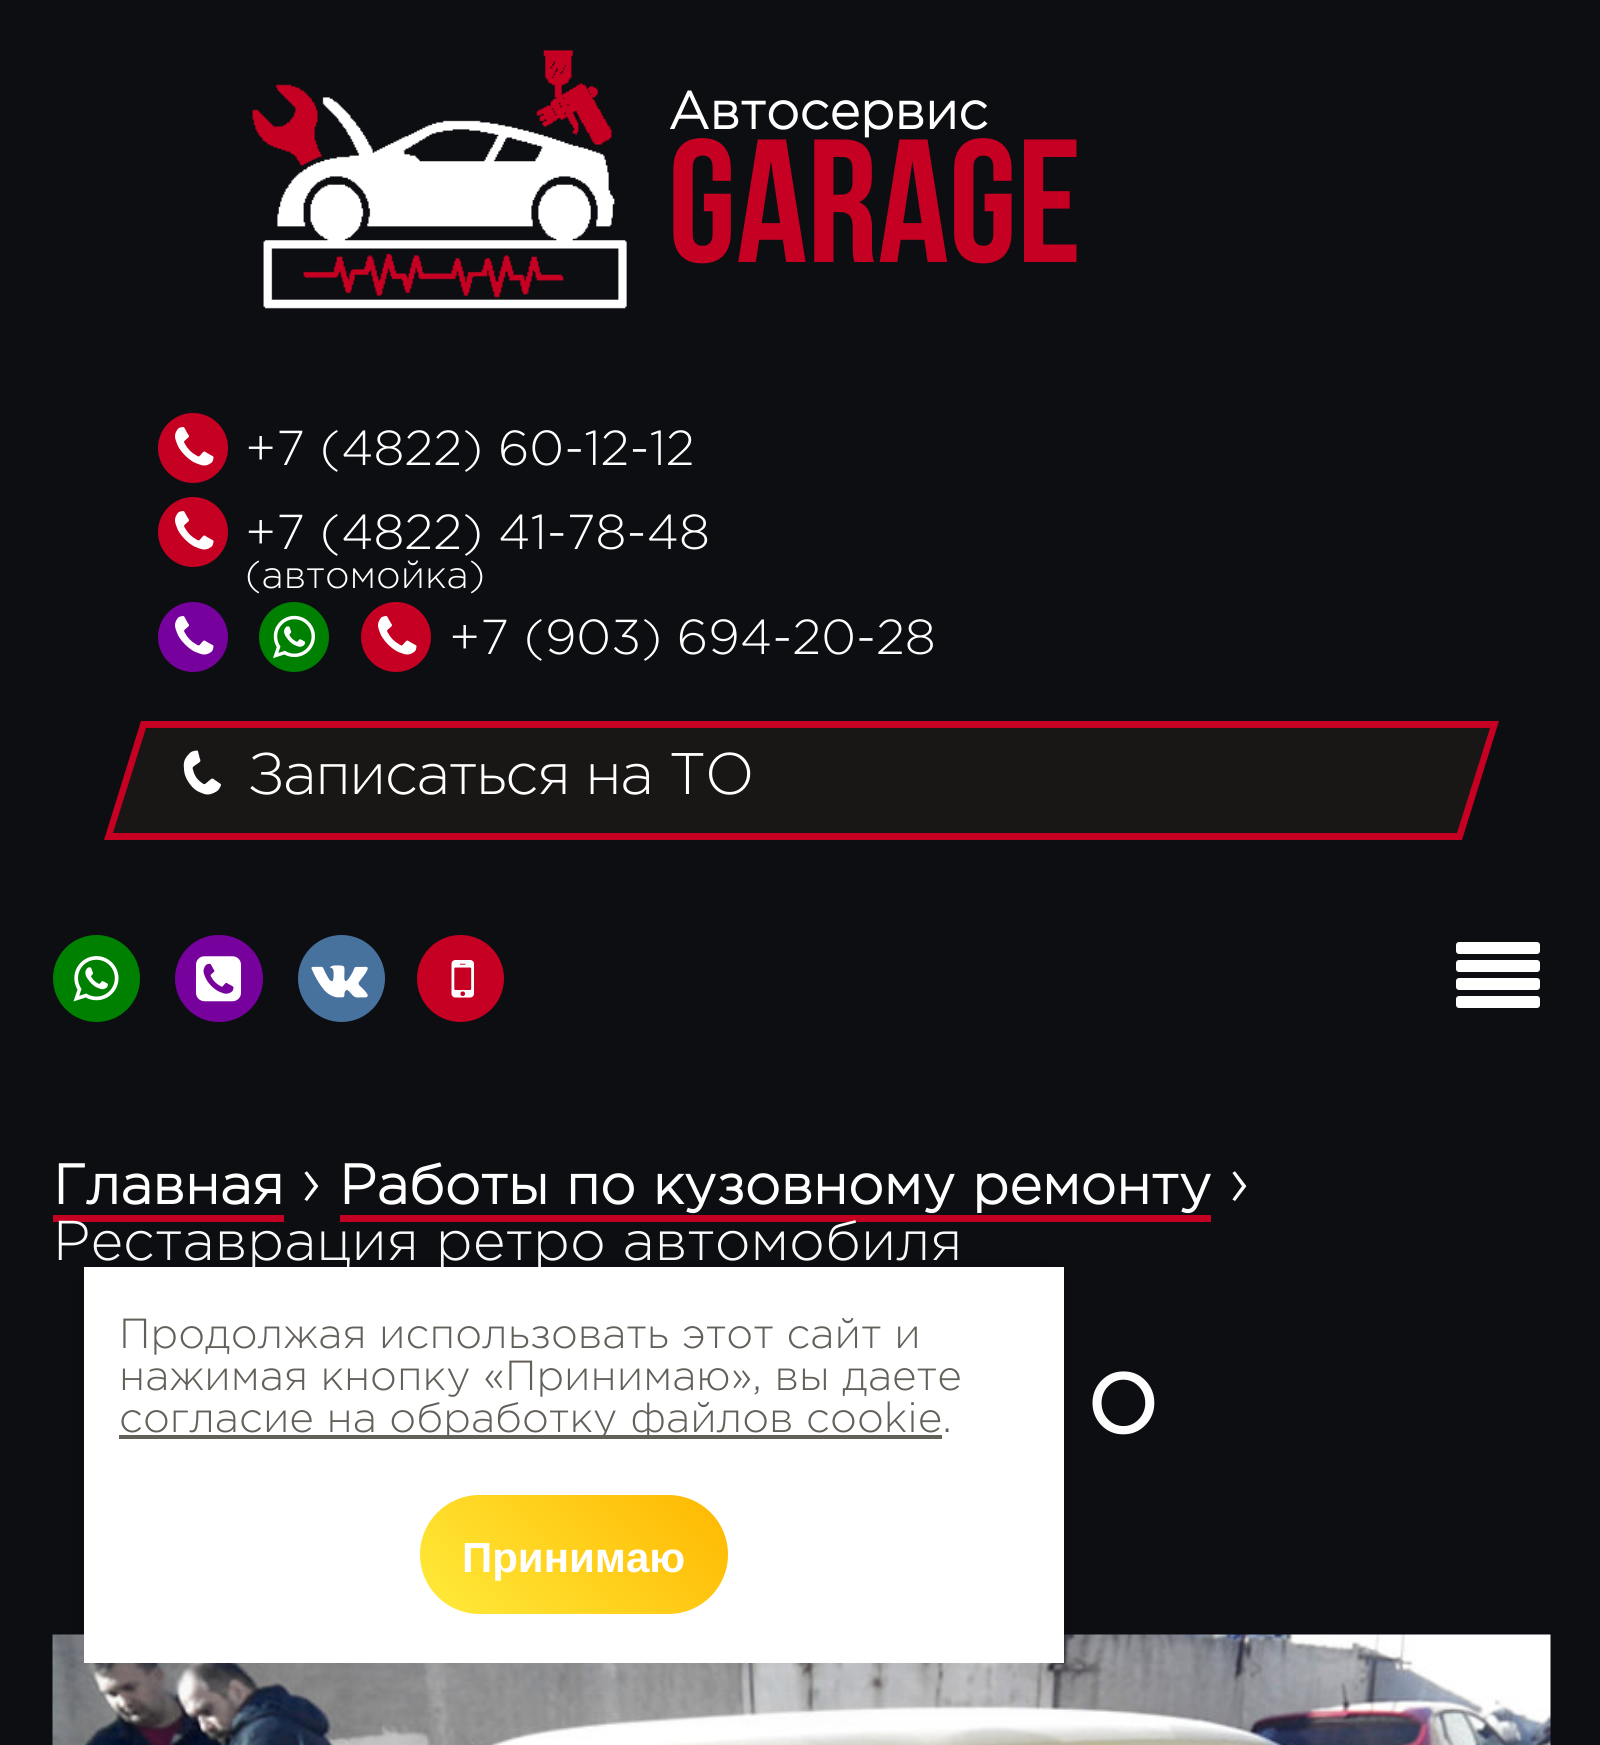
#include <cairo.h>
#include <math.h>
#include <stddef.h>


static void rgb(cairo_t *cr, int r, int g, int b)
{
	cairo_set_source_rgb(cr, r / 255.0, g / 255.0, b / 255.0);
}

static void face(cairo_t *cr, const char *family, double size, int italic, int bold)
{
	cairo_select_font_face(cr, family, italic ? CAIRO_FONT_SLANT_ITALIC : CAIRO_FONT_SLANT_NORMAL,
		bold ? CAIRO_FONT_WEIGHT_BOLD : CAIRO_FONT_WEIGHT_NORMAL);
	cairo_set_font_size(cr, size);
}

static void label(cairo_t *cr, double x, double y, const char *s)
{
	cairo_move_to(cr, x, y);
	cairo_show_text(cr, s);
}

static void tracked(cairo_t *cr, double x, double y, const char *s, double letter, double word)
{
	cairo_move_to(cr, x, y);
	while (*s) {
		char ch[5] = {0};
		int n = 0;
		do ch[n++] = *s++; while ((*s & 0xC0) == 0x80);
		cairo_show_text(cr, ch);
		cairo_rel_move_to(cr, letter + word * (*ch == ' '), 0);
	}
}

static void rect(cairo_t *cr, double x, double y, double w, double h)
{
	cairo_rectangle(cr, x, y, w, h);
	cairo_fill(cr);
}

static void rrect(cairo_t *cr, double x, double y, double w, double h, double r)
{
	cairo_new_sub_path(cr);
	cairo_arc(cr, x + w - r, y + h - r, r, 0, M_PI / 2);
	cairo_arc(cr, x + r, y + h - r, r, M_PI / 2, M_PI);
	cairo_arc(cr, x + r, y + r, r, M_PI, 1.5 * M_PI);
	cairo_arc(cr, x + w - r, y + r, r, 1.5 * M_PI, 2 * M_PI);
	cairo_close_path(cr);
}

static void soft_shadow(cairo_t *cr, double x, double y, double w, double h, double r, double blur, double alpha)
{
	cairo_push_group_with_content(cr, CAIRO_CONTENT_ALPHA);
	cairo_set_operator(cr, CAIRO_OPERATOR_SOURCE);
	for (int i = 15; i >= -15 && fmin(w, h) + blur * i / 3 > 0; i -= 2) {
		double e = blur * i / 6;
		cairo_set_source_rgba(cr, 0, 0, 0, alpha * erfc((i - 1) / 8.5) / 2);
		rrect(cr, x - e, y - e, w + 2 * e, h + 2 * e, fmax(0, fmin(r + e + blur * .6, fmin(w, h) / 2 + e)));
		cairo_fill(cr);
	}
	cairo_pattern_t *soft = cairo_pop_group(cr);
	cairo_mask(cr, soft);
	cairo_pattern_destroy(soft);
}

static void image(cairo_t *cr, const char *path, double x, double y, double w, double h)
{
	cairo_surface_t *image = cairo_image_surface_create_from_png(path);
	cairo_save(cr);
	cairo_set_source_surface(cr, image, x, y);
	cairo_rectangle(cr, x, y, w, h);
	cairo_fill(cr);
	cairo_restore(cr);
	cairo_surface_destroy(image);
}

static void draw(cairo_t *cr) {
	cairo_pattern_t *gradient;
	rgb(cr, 13, 14, 18);
	cairo_paint(cr);
	image(cr, "image0.png", 252, 50, 375, 259);
	face(cr, "Gotham", 52.5, 0, 1);
	rgb(cr, 255, 255, 255);
	label(cr, 668, 129, "Автосервис");
	face(cr, "Bebas Neue", 175, 0, 1);
	rgb(cr, 197, 0, 34);
	label(cr, 668, 262, "Garage");
	cairo_new_path(cr);
	cairo_arc(cr, 193, 448, 35, 0, 2 * M_PI);
	cairo_fill(cr);
	image(cr, "image1.png", 175, 427, 39, 39);
	face(cr, "Gotham Light", 49, 0, 0);
	rgb(cr, 255, 255, 255);
	label(cr, 245, 465, "+7 (4822) 60-12-12");
	rgb(cr, 197, 0, 34);
	cairo_new_path(cr);
	cairo_arc(cr, 193, 532, 35, 0, 2 * M_PI);
	cairo_fill(cr);
	image(cr, "image1.png", 175, 511, 39, 39);
	rgb(cr, 255, 255, 255);
	label(cr, 245, 549, "+7 (4822) 41-78-48");
	face(cr, "Gotham Light", 38.5, 0, 0);
	label(cr, 245, 588, "(автомойка)");
	rgb(cr, 118, 1, 156);
	cairo_new_path(cr);
	cairo_arc(cr, 193, 637, 35, 0, 2 * M_PI);
	cairo_fill(cr);
	image(cr, "image2.png", 175, 616, 39, 39);
	rgb(cr, 0, 128, 0);
	cairo_arc(cr, 294, 637, 35, 0, 2 * M_PI);
	cairo_fill(cr);
	image(cr, "image3.png", 273, 615, 42, 44);
	rgb(cr, 197, 0, 34);
	cairo_arc(cr, 396, 637, 35, 0, 2 * M_PI);
	cairo_fill(cr);
	image(cr, "image1.png", 378, 616, 39, 39);
	face(cr, "Gotham Light", 49, 0, 0);
	rgb(cr, 255, 255, 255);
	label(cr, 449, 654, "+7 (903) 694-20-28");
	rgb(cr, 197, 0, 34);
	cairo_new_path(cr);
	cairo_move_to(cr, 141, 721);
	cairo_line_to(cr, 1499, 721);
	cairo_line_to(cr, 1462, 840);
	cairo_line_to(cr, 104, 840);
	cairo_close_path(cr);
	cairo_fill(cr);
	rgb(cr, 25, 22, 22);
	cairo_new_path(cr);
	cairo_move_to(cr, 146, 728);
	cairo_line_to(cr, 1490, 728);
	cairo_line_to(cr, 1457, 833);
	cairo_line_to(cr, 113, 833);
	cairo_close_path(cr);
	cairo_fill(cr);
	image(cr, "image4.png", 183, 750, 38, 45);
	face(cr, "Gotham Light", 58.5, 0, 0);
	rgb(cr, 255, 255, 255);
	tracked(cr, 248, 794, "Записаться на ТО", -1.5, 0);
	rgb(cr, 0, 128, 0);
	cairo_new_path(cr);
	cairo_arc(cr, 96.5, 978.5, 43.5, 0, 2 * M_PI);
	cairo_fill(cr);
	image(cr, "image5.png", 73, 956, 46, 46);
	rgb(cr, 118, 1, 156);
	rrect(cr, 175, 935, 88, 87, 43.5);
	cairo_fill(cr);
	image(cr, "image6.png", 196, 956, 45, 46);
	rgb(cr, 72, 114, 158);
	cairo_arc(cr, 341.5, 978.5, 43.5, 0, 2 * M_PI);
	cairo_fill(cr);
	image(cr, "image7.png", 311, 965, 57, 33);
	rgb(cr, 197, 0, 34);
	cairo_arc(cr, 460.5, 978.5, 43.5, 0, 2 * M_PI);
	cairo_fill(cr);
	image(cr, "image8.png", 451, 960, 23, 38);
	image(cr, "image9.png", 1456, 942, 84, 66);
	face(cr, "Gotham", 56, 0, 1);
	rgb(cr, 255, 255, 255);
	label(cr, 53, 1204, "Главная");
	rgb(cr, 197, 0, 34);
	rect(cr, 53, 1215, 231, 7);
	face(cr, "Gotham Light", 70, 0, 0);
	rgb(cr, 255, 255, 255);
	label(cr, 300, 1204, "›");
	face(cr, "Gotham", 56, 0, 1);
	label(cr, 339, 1204, "Работы по кузовному ремонту");
	rgb(cr, 197, 0, 34);
	rect(cr, 340, 1215, 871, 7);
	face(cr, "Gotham Light", 70, 0, 0);
	rgb(cr, 255, 255, 255);
	label(cr, 1228, 1204, "›");
	face(cr, "Gotham Light", 56, 0, 0);
	label(cr, 53, 1260, "Реставрация ретро автомобиля");
	face(cr, "Gotham", 112, 0, 1);
	label(cr, 1086, 1433, "о");
	image(cr, "image10.png", 52, 1634, 1499, 111);
	rgb(cr, 0, 0, 0);
	soft_shadow(cr, 84, 1267, 980, 396, 0, 35, 0.1);
	rgb(cr, 255, 255, 255);
	rect(cr, 84, 1267, 980, 396);
	face(cr, "Gotham Light", 42, 0, 0);
	rgb(cr, 99, 95, 89);
	label(cr, 119, 1348, "Продолжая использовать этот сайт и");
	label(cr, 119, 1390, "нажимая кнопку «Принимаю», вы даете");
	rect(cr, 119, 1435, 823, 4);
	label(cr, 119, 1432, "согласие на обработку файлов cookie.");
	gradient = cairo_pattern_create_linear(467, 1661, 681, 1447);
	cairo_pattern_add_color_stop_rgba(gradient, 0, 1, 0.922, 0.231, 1);
	cairo_pattern_add_color_stop_rgba(gradient, 1, 1, 0.718, 0, 1);
	cairo_set_source(cr, gradient);
	cairo_pattern_destroy(gradient);
	rrect(cr, 420, 1495, 308, 119, 59.5);
	cairo_fill(cr);
	face(cr, "Liberation Sans", 42, 0, 1);
	rgb(cr, 255, 255, 255);
	label(cr, 462, 1572, "Принимаю");
}

int main(void) {
	cairo_surface_t *surface = cairo_image_surface_create(CAIRO_FORMAT_RGB24, 1600, 1745);
	cairo_t *cr = cairo_create(surface);
	cairo_font_options_t *options = cairo_font_options_create();
	cairo_font_options_set_hint_metrics(options, CAIRO_HINT_METRICS_OFF);
	cairo_font_options_set_hint_style(options, CAIRO_HINT_STYLE_NONE);
	cairo_set_font_options(cr, options);
	cairo_set_miter_limit(cr, 4);
	draw(cr);
	cairo_surface_write_to_png(surface, "render.png");
	cairo_font_options_destroy(options);
	cairo_destroy(cr);
	cairo_surface_destroy(surface);
	return 0;
}
